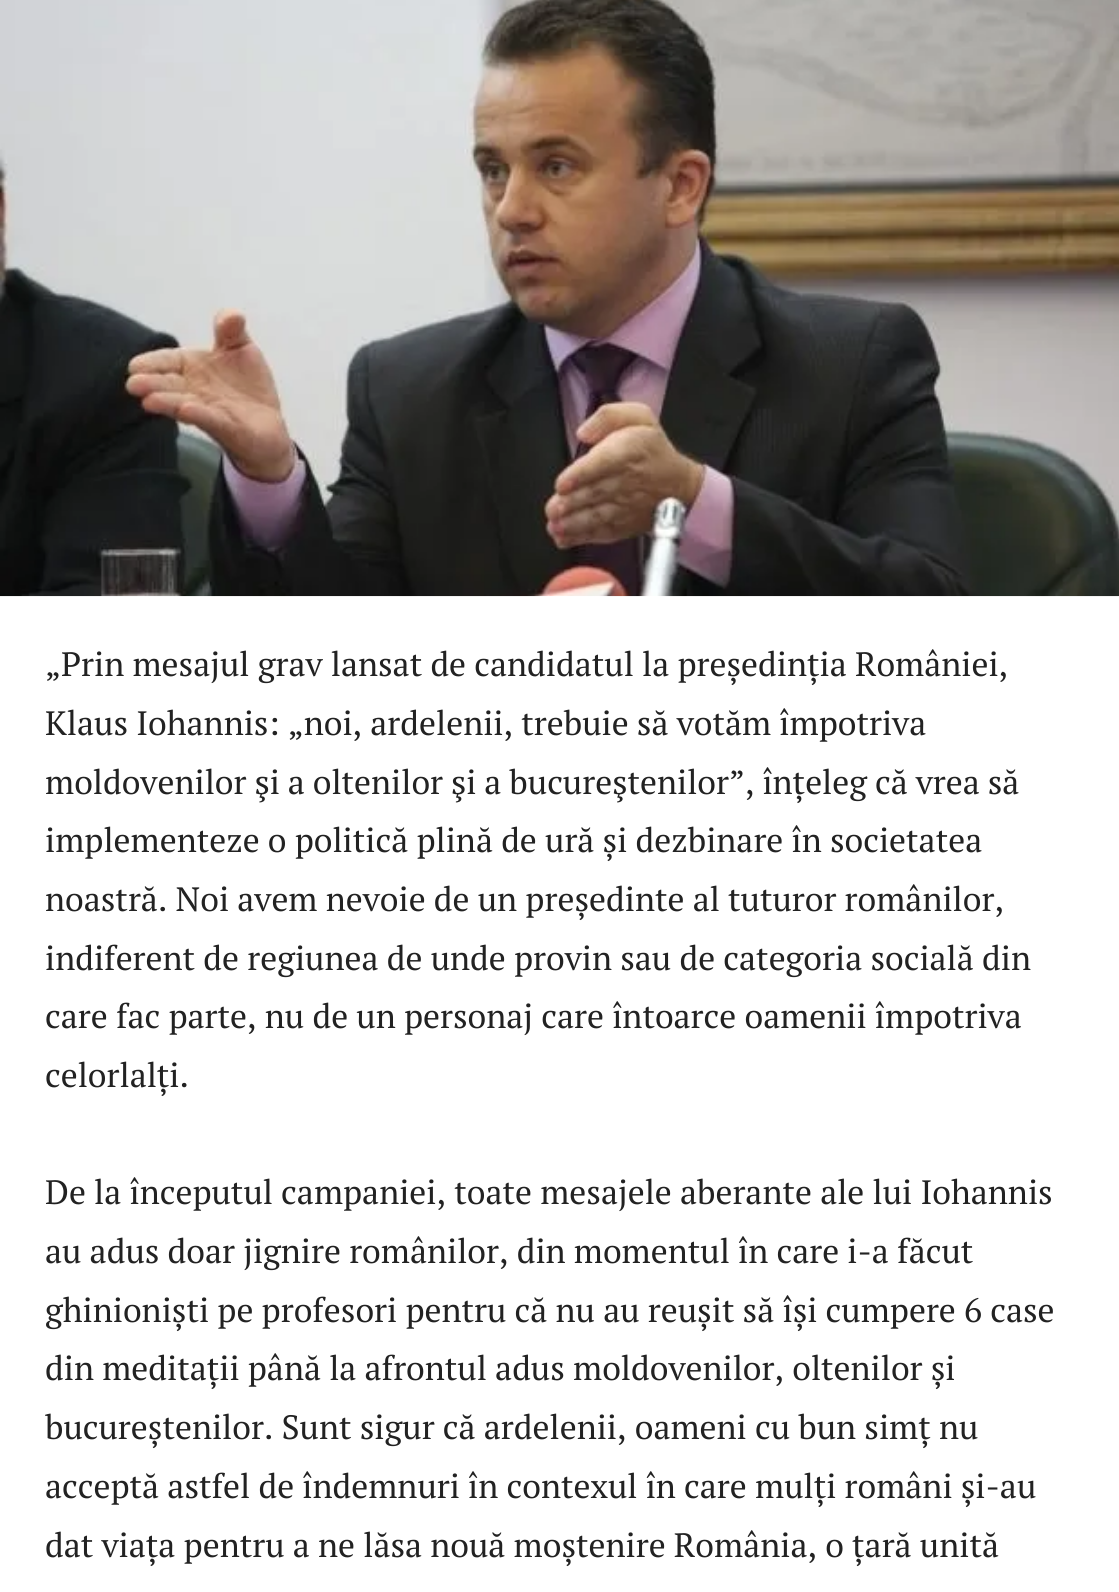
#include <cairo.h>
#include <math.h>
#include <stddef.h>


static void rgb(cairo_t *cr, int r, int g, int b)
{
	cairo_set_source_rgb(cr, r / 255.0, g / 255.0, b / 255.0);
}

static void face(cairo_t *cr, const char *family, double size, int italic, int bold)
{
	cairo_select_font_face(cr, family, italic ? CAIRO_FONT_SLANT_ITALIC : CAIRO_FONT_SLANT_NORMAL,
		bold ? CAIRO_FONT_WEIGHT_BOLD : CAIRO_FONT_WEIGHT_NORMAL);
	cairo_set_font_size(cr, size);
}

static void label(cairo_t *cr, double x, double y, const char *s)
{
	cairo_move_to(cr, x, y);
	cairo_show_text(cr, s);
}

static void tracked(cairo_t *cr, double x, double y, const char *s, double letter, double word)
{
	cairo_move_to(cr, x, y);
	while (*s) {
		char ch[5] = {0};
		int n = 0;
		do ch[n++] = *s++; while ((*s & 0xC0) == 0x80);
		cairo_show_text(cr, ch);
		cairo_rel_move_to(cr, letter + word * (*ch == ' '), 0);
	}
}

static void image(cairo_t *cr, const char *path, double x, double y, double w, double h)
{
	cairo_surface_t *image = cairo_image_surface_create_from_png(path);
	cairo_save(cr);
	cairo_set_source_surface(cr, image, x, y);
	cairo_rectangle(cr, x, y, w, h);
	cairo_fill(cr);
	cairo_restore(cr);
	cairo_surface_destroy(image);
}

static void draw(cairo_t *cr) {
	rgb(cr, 255, 255, 255);
	cairo_paint(cr);
	image(cr, "image0.png", 0, 0, 1119, 597);
	face(cr, "PT Serif", 33.75, 0, 0);
	rgb(cr, 34, 34, 34);
	label(cr, 45, 676, "„Prin mesajul grav lansat de candidatul la președinția României,");
	label(cr, 45, 735, "Klaus Iohannis: „noi, ardelenii, trebuie să votăm împotriva");
	tracked(cr, 45, 794, "moldovenilor şi a oltenilor şi a bucureştenilor”, înțeleg că vrea să", 0, -0.25);
	label(cr, 45, 852, "implementeze o politică plină de ură și dezbinare în societatea");
	label(cr, 45, 911, "noastră. Noi avem nevoie de un președinte al tuturor românilor,");
	label(cr, 45, 970, "indiferent de regiunea de unde provin sau de categoria socială din");
	label(cr, 45, 1028, "care fac parte, nu de un personaj care întoarce oamenii împotriva");
	label(cr, 45, 1087, "celorlalți.");
	label(cr, 45, 1204, "De la începutul campaniei, toate mesajele aberante ale lui Iohannis");
	label(cr, 45, 1263, "au adus doar jignire românilor, din momentul în care i-a făcut");
	label(cr, 45, 1322, "ghinioniști pe profesori pentru că nu au reușit să își cumpere 6 case");
	label(cr, 45, 1380, "din meditații până la afrontul adus moldovenilor, oltenilor și");
	label(cr, 45, 1439, "bucureștenilor. Sunt sigur că ardelenii, oameni cu bun simț nu");
	label(cr, 45, 1498, "acceptă astfel de îndemnuri în contexul în care mulți români și-au");
	label(cr, 45, 1557, "dat viața pentru a ne lăsa nouă moștenire România, o țară unită");
}

int main(void) {
	cairo_surface_t *surface = cairo_image_surface_create(CAIRO_FORMAT_RGB24, 1119, 1592);
	cairo_t *cr = cairo_create(surface);
	cairo_font_options_t *options = cairo_font_options_create();
	cairo_font_options_set_hint_metrics(options, CAIRO_HINT_METRICS_OFF);
	cairo_font_options_set_hint_style(options, CAIRO_HINT_STYLE_NONE);
	cairo_set_font_options(cr, options);
	cairo_set_miter_limit(cr, 4);
	draw(cr);
	cairo_surface_write_to_png(surface, "render.png");
	cairo_font_options_destroy(options);
	cairo_destroy(cr);
	cairo_surface_destroy(surface);
	return 0;
}
